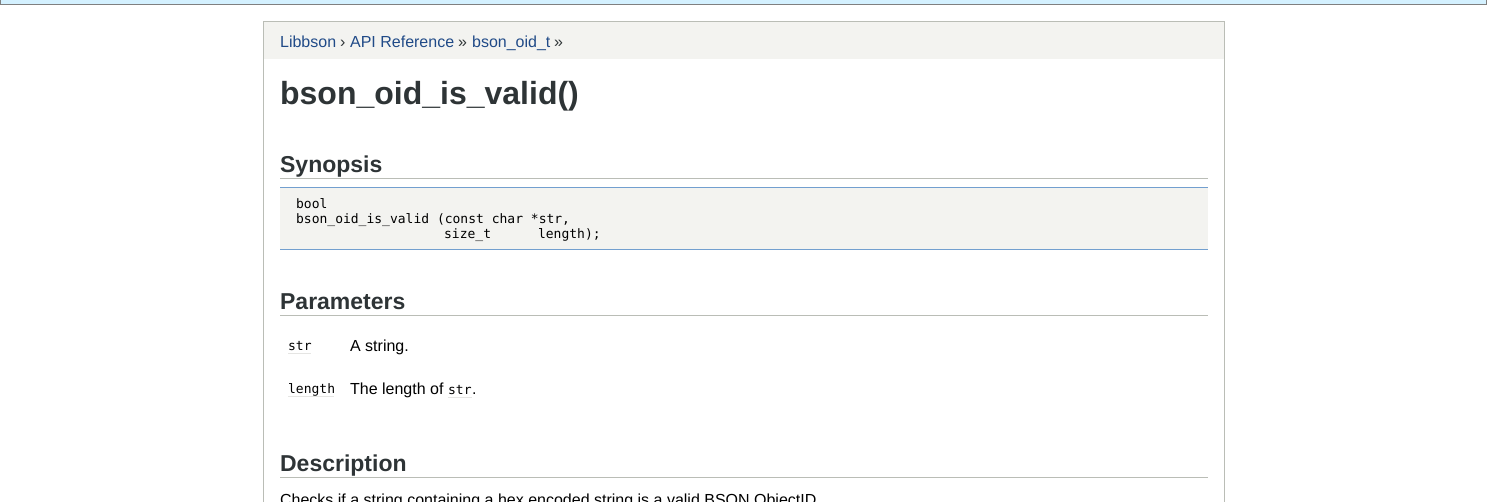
#include <cairo.h>
#include <math.h>
#include <stddef.h>


static void rgb(cairo_t *cr, int r, int g, int b)
{
	cairo_set_source_rgb(cr, r / 255.0, g / 255.0, b / 255.0);
}

static void face(cairo_t *cr, const char *family, double size, int italic, int bold)
{
	cairo_select_font_face(cr, family, italic ? CAIRO_FONT_SLANT_ITALIC : CAIRO_FONT_SLANT_NORMAL,
		bold ? CAIRO_FONT_WEIGHT_BOLD : CAIRO_FONT_WEIGHT_NORMAL);
	cairo_set_font_size(cr, size);
}

static void label(cairo_t *cr, double x, double y, const char *s)
{
	cairo_move_to(cr, x, y);
	cairo_show_text(cr, s);
}

static void rect(cairo_t *cr, double x, double y, double w, double h)
{
	cairo_rectangle(cr, x, y, w, h);
	cairo_fill(cr);
}

static void draw(cairo_t *cr) {
	rgb(cr, 255, 255, 255);
	cairo_paint(cr);
	rgb(cr, 212, 241, 255);
	cairo_rectangle(cr, 0.5, -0.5, 1486, 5);
	cairo_fill_preserve(cr);
	rgb(cr, 128, 128, 128);
	cairo_set_line_width(cr, 1);
	cairo_stroke(cr);
	cairo_rectangle(cr, 263.5, 21.5, 961, 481);
	rgb(cr, 186, 189, 182);
	cairo_stroke(cr);
	rgb(cr, 243, 243, 240);
	rect(cr, 264, 22, 960, 37);
	face(cr, "Liberation Sans", 16, 0, 0);
	rgb(cr, 32, 74, 135);
	label(cr, 280, 47, "Libbson");
	rgb(cr, 46, 52, 54);
	label(cr, 340, 47, "›");
	rgb(cr, 32, 74, 135);
	label(cr, 350, 47, "API Reference");
	rgb(cr, 46, 52, 54);
	label(cr, 458, 47, "»");
	rgb(cr, 32, 74, 135);
	label(cr, 472, 47, "bson_oid_t");
	rgb(cr, 46, 52, 54);
	label(cr, 554, 47, "»");
	face(cr, "Liberation Sans", 32, 0, 1);
	label(cr, 280, 104, "bson_oid_is_valid()");
	rgb(cr, 186, 189, 182);
	rect(cr, 280, 178, 928, 1);
	face(cr, "Liberation Sans", 23, 0, 1);
	rgb(cr, 46, 52, 54);
	label(cr, 280, 172, "Synopsis");
	rgb(cr, 243, 243, 240);
	rect(cr, 280, 188, 928, 61);
	rgb(cr, 114, 159, 207);
	rect(cr, 280, 187, 928, 1);
	rect(cr, 280, 249, 928, 1);
	face(cr, "DejaVu Sans Mono", 13, 0, 0);
	rgb(cr, 0, 0, 0);
	label(cr, 296, 208, "bool");
	label(cr, 296, 223, "bson_oid_is_valid (const char *str,");
	label(cr, 444, 238, "size_t      length);");
	rgb(cr, 186, 189, 182);
	rect(cr, 280, 315, 928, 1);
	face(cr, "Liberation Sans", 23, 0, 1);
	rgb(cr, 46, 52, 54);
	label(cr, 280, 309, "Parameters");
	face(cr, "DejaVu Sans Mono", 13, 0, 0);
	rgb(cr, 0, 0, 0);
	label(cr, 288, 350, "str");
	rgb(cr, 229, 229, 227);
	rect(cr, 288, 353, 23, 1);
	face(cr, "Liberation Sans", 16, 0, 0);
	rgb(cr, 0, 0, 0);
	label(cr, 350, 351, "A string.");
	face(cr, "DejaVu Sans Mono", 13, 0, 0);
	label(cr, 288, 393, "length");
	rgb(cr, 229, 229, 227);
	rect(cr, 288, 396, 46, 1);
	face(cr, "Liberation Sans", 16, 0, 0);
	rgb(cr, 0, 0, 0);
	label(cr, 350, 394, "The length of");
	face(cr, "DejaVu Sans Mono", 13, 0, 0);
	label(cr, 448, 394, "str");
	rgb(cr, 229, 229, 227);
	rect(cr, 448, 397, 24, 1);
	face(cr, "Liberation Sans", 16, 0, 0);
	rgb(cr, 0, 0, 0);
	label(cr, 472, 394, ".");
	rgb(cr, 186, 189, 182);
	rect(cr, 280, 477, 928, 1);
	face(cr, "Liberation Sans", 23, 0, 1);
	rgb(cr, 46, 52, 54);
	label(cr, 280, 471, "Description");
	face(cr, "Liberation Sans", 16, 0, 0);
	rgb(cr, 0, 0, 0);
	label(cr, 280, 505, "Checks if a string containing a hex encoded string is a valid BSON ObjectID");
}

int main(void) {
	cairo_surface_t *surface = cairo_image_surface_create(CAIRO_FORMAT_RGB24, 1487, 502);
	cairo_t *cr = cairo_create(surface);
	cairo_font_options_t *options = cairo_font_options_create();
	cairo_font_options_set_hint_metrics(options, CAIRO_HINT_METRICS_OFF);
	cairo_font_options_set_hint_style(options, CAIRO_HINT_STYLE_NONE);
	cairo_set_font_options(cr, options);
	cairo_set_miter_limit(cr, 4);
	draw(cr);
	cairo_surface_write_to_png(surface, "render.png");
	cairo_font_options_destroy(options);
	cairo_destroy(cr);
	cairo_surface_destroy(surface);
	return 0;
}
